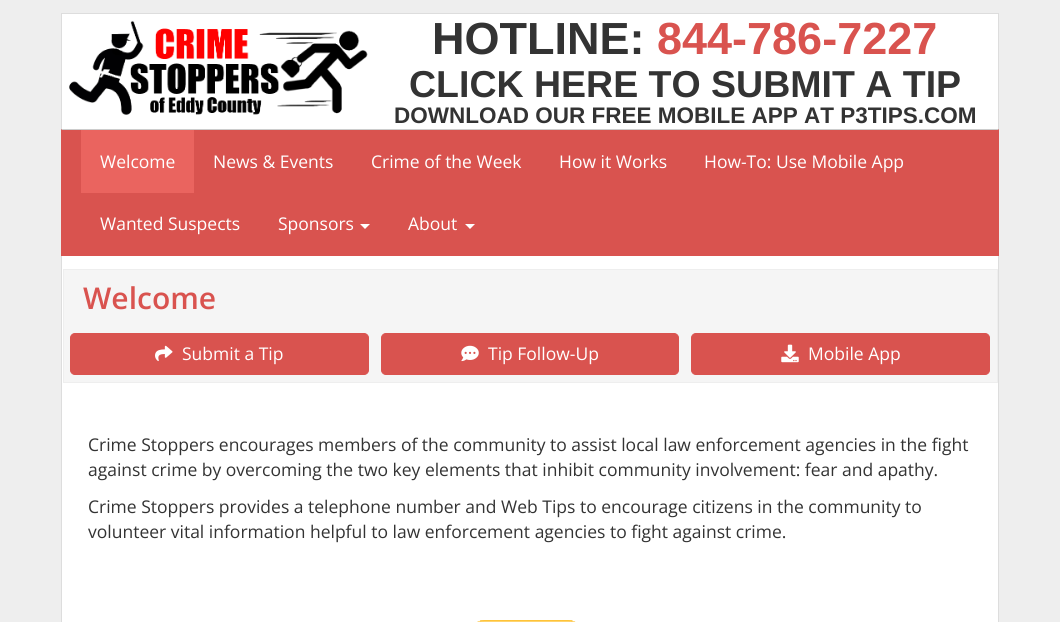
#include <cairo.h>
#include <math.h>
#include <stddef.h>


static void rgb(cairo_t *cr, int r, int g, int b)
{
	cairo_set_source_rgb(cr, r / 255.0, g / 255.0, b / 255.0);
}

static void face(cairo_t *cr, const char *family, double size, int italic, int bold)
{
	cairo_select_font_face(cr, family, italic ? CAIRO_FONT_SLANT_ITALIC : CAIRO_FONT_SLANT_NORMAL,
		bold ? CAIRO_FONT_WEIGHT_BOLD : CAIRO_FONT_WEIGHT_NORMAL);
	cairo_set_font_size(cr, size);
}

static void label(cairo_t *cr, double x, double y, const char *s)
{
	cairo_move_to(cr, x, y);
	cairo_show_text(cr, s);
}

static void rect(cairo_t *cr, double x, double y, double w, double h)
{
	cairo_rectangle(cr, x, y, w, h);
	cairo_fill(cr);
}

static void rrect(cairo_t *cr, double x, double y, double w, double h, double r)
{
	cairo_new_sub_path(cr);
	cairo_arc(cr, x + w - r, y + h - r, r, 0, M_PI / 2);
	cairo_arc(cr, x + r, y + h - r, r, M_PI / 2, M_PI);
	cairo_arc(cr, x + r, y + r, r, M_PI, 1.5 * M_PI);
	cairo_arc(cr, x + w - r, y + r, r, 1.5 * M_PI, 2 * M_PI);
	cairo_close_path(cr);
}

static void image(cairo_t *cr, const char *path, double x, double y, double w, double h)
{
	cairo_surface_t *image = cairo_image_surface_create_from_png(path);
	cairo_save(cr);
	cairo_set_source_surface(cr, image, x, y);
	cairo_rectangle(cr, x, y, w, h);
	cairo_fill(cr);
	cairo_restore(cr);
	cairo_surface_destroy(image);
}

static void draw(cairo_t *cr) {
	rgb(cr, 238, 238, 238);
	cairo_paint(cr);
	rgb(cr, 255, 255, 255);
	rect(cr, 62, 14, 936, 115);
	rgb(cr, 221, 221, 221);
	rect(cr, 61, 13, 938, 1);
	rect(cr, 998, 13, 1, 116);
	rect(cr, 61, 13, 1, 116);
	image(cr, "image0.png", 69, 20, 299, 95);
	face(cr, "Liberation Sans", 45, 0, 1);
	rgb(cr, 51, 51, 51);
	label(cr, 432, 54, "HOTLINE:");
	rgb(cr, 217, 83, 79);
	label(cr, 657, 54, "844-786-7227");
	face(cr, "Liberation Sans", 37.5, 0, 1);
	rgb(cr, 51, 51, 51);
	label(cr, 409, 97, "CLICK HERE TO SUBMIT A TIP");
	face(cr, "Liberation Sans", 22.5, 0, 1);
	label(cr, 394, 123, "DOWNLOAD OUR FREE MOBILE APP AT P3TIPS.COM");
	rgb(cr, 217, 83, 79);
	rect(cr, 61, 129, 938, 127);
	rgb(cr, 204, 204, 204);
	cairo_new_path(cr);
	cairo_move_to(cr, 61, 129);
	cairo_line_to(cr, 999, 129);
	cairo_line_to(cr, 998, 130);
	cairo_line_to(cr, 62, 130);
	cairo_close_path(cr);
	cairo_fill(cr);
	rgb(cr, 234, 100, 95);
	rect(cr, 81, 130, 113, 63);
	face(cr, "Open Sans", 17.5, 0, 0);
	rgb(cr, 255, 255, 255);
	label(cr, 100, 168, "Welcome");
	label(cr, 213, 168, "News & Events");
	label(cr, 371, 168, "Crime of the Week");
	label(cr, 559, 168, "How it Works");
	label(cr, 704, 168, "How-To: Use Mobile App");
	label(cr, 100, 230, "Wanted Suspects");
	label(cr, 278, 230, "Sponsors");
	cairo_new_path(cr);
	cairo_move_to(cr, 360, 224);
	cairo_line_to(cr, 370, 224);
	cairo_line_to(cr, 365, 229);
	cairo_close_path(cr);
	cairo_fill(cr);
	label(cr, 408, 230, "About");
	cairo_new_path(cr);
	cairo_move_to(cr, 465, 224);
	cairo_line_to(cr, 475, 224);
	cairo_line_to(cr, 470, 229);
	cairo_close_path(cr);
	cairo_fill(cr);
	rect(cr, 62, 256, 936, 366);
	rgb(cr, 221, 221, 221);
	rect(cr, 998, 256, 1, 366);
	rect(cr, 61, 256, 1, 366);
	rgb(cr, 245, 245, 245);
	cairo_rectangle(cr, 63.5, 269.5, 934, 113);
	cairo_fill_preserve(cr);
	rgb(cr, 238, 238, 238);
	cairo_set_line_width(cr, 1);
	cairo_stroke(cr);
	face(cr, "Open Sans SemiBold", 30, 0, 0);
	rgb(cr, 217, 83, 79);
	label(cr, 83, 309, "Welcome");
	rrect(cr, 70.5, 333.5, 298, 41, 4.5);
	cairo_fill_preserve(cr);
	cairo_stroke(cr);
	image(cr, "image1.png", 155, 345, 18, 17);
	face(cr, "Open Sans", 17.5, 0, 0);
	rgb(cr, 255, 255, 255);
	label(cr, 182, 360, "Submit a Tip");
	rgb(cr, 217, 83, 79);
	rrect(cr, 381.5, 333.5, 297, 41, 4.5);
	cairo_fill_preserve(cr);
	cairo_stroke(cr);
	image(cr, "image2.png", 461, 345, 18, 17);
	rgb(cr, 255, 255, 255);
	label(cr, 488, 360, "Tip Follow-Up");
	rgb(cr, 217, 83, 79);
	rrect(cr, 691.5, 333.5, 298, 41, 4.5);
	cairo_fill_preserve(cr);
	cairo_stroke(cr);
	image(cr, "image3.png", 781, 344, 18, 19);
	rgb(cr, 255, 255, 255);
	label(cr, 808, 360, "Mobile App");
	rgb(cr, 51, 51, 51);
	label(cr, 88, 451, "Crime Stoppers encourages members of the community to assist local law enforcement agencies in the fight");
	label(cr, 88, 476, "against crime by overcoming the two key elements that inhibit community involvement: fear and apathy.");
	label(cr, 88, 513, "Crime Stoppers provides a telephone number and Web Tips to encourage citizens in the community to");
	label(cr, 88, 538, "volunteer vital information helpful to law enforcement agencies to fight against crime.");
	image(cr, "image4.png", 477, 620, 99, 2);
}

int main(void) {
	cairo_surface_t *surface = cairo_image_surface_create(CAIRO_FORMAT_RGB24, 1060, 622);
	cairo_t *cr = cairo_create(surface);
	cairo_font_options_t *options = cairo_font_options_create();
	cairo_font_options_set_hint_metrics(options, CAIRO_HINT_METRICS_OFF);
	cairo_font_options_set_hint_style(options, CAIRO_HINT_STYLE_NONE);
	cairo_set_font_options(cr, options);
	cairo_set_miter_limit(cr, 4);
	draw(cr);
	cairo_surface_write_to_png(surface, "render.png");
	cairo_font_options_destroy(options);
	cairo_destroy(cr);
	cairo_surface_destroy(surface);
	return 0;
}
